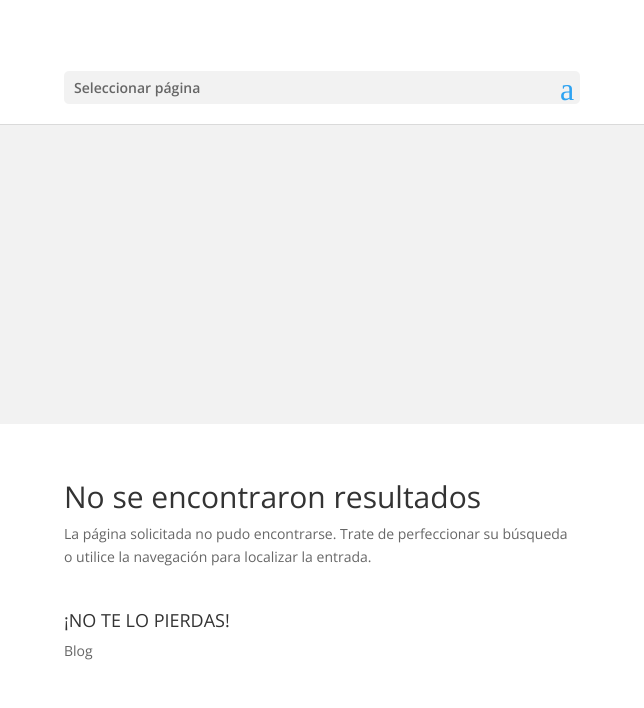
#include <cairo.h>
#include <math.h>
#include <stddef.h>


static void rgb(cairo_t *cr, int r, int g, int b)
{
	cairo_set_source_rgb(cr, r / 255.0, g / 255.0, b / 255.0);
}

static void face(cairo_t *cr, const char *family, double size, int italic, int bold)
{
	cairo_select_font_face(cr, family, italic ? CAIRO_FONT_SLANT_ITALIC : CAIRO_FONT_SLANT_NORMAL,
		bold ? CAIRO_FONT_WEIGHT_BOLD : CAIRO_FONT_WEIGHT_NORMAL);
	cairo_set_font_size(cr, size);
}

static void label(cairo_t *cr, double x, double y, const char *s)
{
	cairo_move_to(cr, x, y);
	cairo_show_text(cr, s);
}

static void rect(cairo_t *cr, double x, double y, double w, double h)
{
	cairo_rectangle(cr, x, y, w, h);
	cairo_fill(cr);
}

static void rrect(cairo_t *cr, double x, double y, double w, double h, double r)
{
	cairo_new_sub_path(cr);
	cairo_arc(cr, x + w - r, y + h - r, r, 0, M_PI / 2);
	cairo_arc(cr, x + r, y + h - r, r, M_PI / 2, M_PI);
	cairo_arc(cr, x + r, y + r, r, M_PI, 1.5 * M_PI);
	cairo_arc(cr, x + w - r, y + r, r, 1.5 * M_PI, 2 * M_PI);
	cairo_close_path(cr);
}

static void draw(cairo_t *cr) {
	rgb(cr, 242, 242, 242);
	cairo_paint(cr);
	rgb(cr, 218, 218, 218);
	rect(cr, 0, 124, 644, 1);
	rgb(cr, 255, 255, 255);
	rect(cr, 0, 0, 644, 124);
	rgb(cr, 242, 242, 242);
	rrect(cr, 64, 71, 516, 33, 5);
	cairo_fill(cr);
	face(cr, "Open Sans SemiBold", 14, 0, 0);
	rgb(cr, 102, 102, 102);
	label(cr, 74, 93, "Seleccionar página");
	face(cr, "Liberation Serif", 32, 0, 0);
	rgb(cr, 46, 163, 242);
	label(cr, 560, 100, "a");
	rgb(cr, 255, 255, 255);
	rect(cr, 0, 424, 644, 284);
	face(cr, "Open Sans", 30, 0, 0);
	rgb(cr, 51, 51, 51);
	label(cr, 64, 508, "No se encontraron resultados");
	face(cr, "Open Sans", 14, 0, 0);
	rgb(cr, 102, 102, 102);
	label(cr, 64, 539, "La página solicitada no pudo encontrarse. Trate de perfeccionar su búsqueda");
	label(cr, 64, 562, "o utilice la navegación para localizar la entrada.");
	face(cr, "Open Sans", 18, 0, 0);
	rgb(cr, 51, 51, 51);
	label(cr, 64, 627, "¡NO TE LO PIERDAS!");
	face(cr, "Open Sans", 14, 0, 0);
	rgb(cr, 102, 102, 102);
	label(cr, 64, 656, "Blog");
}

int main(void) {
	cairo_surface_t *surface = cairo_image_surface_create(CAIRO_FORMAT_RGB24, 644, 708);
	cairo_t *cr = cairo_create(surface);
	cairo_font_options_t *options = cairo_font_options_create();
	cairo_font_options_set_hint_metrics(options, CAIRO_HINT_METRICS_OFF);
	cairo_font_options_set_hint_style(options, CAIRO_HINT_STYLE_NONE);
	cairo_set_font_options(cr, options);
	cairo_set_miter_limit(cr, 4);
	draw(cr);
	cairo_surface_write_to_png(surface, "render.png");
	cairo_font_options_destroy(options);
	cairo_destroy(cr);
	cairo_surface_destroy(surface);
	return 0;
}
